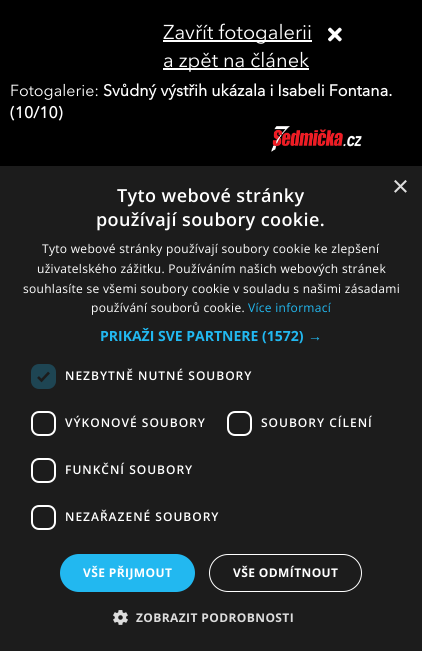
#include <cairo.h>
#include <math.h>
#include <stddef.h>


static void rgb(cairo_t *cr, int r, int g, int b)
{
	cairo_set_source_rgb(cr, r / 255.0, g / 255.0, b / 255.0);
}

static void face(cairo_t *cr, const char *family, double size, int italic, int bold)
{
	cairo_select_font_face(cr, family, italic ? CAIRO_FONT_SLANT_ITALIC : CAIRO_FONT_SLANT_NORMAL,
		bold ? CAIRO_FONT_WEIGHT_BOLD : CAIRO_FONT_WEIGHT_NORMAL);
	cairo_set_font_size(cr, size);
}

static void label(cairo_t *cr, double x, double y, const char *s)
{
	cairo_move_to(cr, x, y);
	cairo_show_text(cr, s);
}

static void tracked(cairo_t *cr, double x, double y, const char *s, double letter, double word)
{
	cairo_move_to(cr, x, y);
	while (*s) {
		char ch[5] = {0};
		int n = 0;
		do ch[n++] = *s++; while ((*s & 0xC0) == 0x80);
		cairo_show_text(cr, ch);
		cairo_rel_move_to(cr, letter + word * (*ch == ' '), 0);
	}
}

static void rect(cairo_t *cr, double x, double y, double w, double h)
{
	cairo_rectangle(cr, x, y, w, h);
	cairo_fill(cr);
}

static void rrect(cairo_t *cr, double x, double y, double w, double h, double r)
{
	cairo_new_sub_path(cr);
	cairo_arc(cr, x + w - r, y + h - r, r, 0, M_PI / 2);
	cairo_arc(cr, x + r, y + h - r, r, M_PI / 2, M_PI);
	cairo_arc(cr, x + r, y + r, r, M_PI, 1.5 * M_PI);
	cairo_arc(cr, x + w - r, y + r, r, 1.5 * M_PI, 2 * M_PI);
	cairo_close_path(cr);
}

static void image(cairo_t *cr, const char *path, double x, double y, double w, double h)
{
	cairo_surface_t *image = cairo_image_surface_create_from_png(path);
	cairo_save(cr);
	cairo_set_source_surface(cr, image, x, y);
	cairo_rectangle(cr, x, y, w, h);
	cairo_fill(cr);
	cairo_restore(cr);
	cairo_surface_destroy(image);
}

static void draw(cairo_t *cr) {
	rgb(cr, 0, 0, 0);
	cairo_paint(cr);
	rgb(cr, 255, 255, 255);
	rect(cr, 163, 40, 149, 2);
	face(cr, "Avenir Next", 20, 0, 0);
	label(cr, 163, 39, "Zavřít fotogalerii");
	image(cr, "image0.png", 328, 27, 14, 15);
	rect(cr, 163, 68, 146, 2);
	label(cr, 163, 67, "a zpět na článek");
	face(cr, "Avenir Next", 16, 0, 0);
	label(cr, 10, 96, "Fotogalerie:");
	face(cr, "Avenir Next", 16, 0, 1);
	label(cr, 103, 96, "Svůdný výstřih ukázala i Isabeli Fontana.");
	label(cr, 10, 118, "(10/10)");
	image(cr, "image1.png", 271, 126, 91, 26);
	rgb(cr, 28, 28, 28);
	rect(cr, 0, 166, 422, 485);
	face(cr, "Liberation Sans", 29, 0, 0);
	rgb(cr, 221, 221, 221);
	label(cr, 392, 196, "×");
	face(cr, "Open Sans SemiBold", 18, 0, 0);
	rgb(cr, 255, 255, 255);
	tracked(cr, 117, 202, "Tyto webové stránky", 0.4, 0);
	tracked(cr, 96, 226, "používají soubory cookie.", 0.4, 0);
	face(cr, "Open Sans", 12, 0, 0);
	tracked(cr, 42, 253, "Tyto webové stránky používají soubory cookie ke zlepšení", 0.3, 0);
	tracked(cr, 37, 273, "uživatelského zážitku. Používáním našich webových stránek", 0.3, 0);
	tracked(cr, 23, 293, "souhlasíte se všemi soubory cookie v souladu s našimi zásadami", 0.3, 0);
	tracked(cr, 91, 312, "používání souborů cookie.", 0.3, 0);
	rgb(cr, 34, 184, 240);
	tracked(cr, 248, 312, "Více informací", 0.3, 0);
	face(cr, "Open Sans", 14, 0, 1);
	label(cr, 100, 341, "PRIKAŽI SVE PARTNERE (1572)");
	face(cr, "Liberation Sans", 14, 0, 1);
	label(cr, 308, 341, "→");
	rgb(cr, 30, 69, 83);
	rrect(cr, 31, 364, 25, 25, 8);
	cairo_fill(cr);
	cairo_new_path(cr);
	cairo_move_to(cr, 38, 377);
	cairo_line_to(cr, 41.5, 380.5);
	cairo_line_to(cr, 49, 372.5);
	rgb(cr, 28, 28, 28);
	cairo_set_line_width(cr, 2.6);
	cairo_stroke(cr);
	face(cr, "Open Sans SemiBold", 12, 0, 0);
	rgb(cr, 255, 255, 255);
	tracked(cr, 65, 380, "NEZBYTNĚ NUTNÉ SOUBORY", 1, 0);
	rrect(cr, 32, 412, 23, 23, 7);
	cairo_set_line_width(cr, 2);
	cairo_stroke(cr);
	tracked(cr, 65, 427, "VÝKONOVÉ SOUBORY", 1, 0);
	rrect(cr, 228, 412, 23, 23, 7);
	cairo_stroke(cr);
	tracked(cr, 261, 427, "SOUBORY CÍLENÍ", 1, 0);
	rrect(cr, 32, 459, 23, 23, 7);
	cairo_stroke(cr);
	tracked(cr, 65, 474, "FUNKČNÍ SOUBORY", 1, 0);
	rrect(cr, 32, 506, 23, 23, 7);
	cairo_stroke(cr);
	tracked(cr, 65, 521, "NEZAŘAZENÉ SOUBORY", 1, 0);
	rgb(cr, 34, 184, 240);
	rrect(cr, 60, 554, 135, 38, 19);
	cairo_fill(cr);
	face(cr, "Open Sans", 12, 0, 1);
	rgb(cr, 255, 255, 255);
	tracked(cr, 83, 577, "VŠE PŘIJMOUT", 0.4, 0);
	rrect(cr, 209.5, 554.5, 152, 37, 18.5);
	cairo_set_line_width(cr, 1);
	cairo_stroke(cr);
	tracked(cr, 233, 577, "VŠE ODMÍTNOUT", 0.4, 0);
	image(cr, "image2.png", 113, 610, 15, 15);
	rgb(cr, 221, 221, 221);
	tracked(cr, 136, 622, "ZOBRAZIT PODROBNOSTI", 0.4, 0);
}

int main(void) {
	cairo_surface_t *surface = cairo_image_surface_create(CAIRO_FORMAT_RGB24, 422, 651);
	cairo_t *cr = cairo_create(surface);
	cairo_font_options_t *options = cairo_font_options_create();
	cairo_font_options_set_hint_metrics(options, CAIRO_HINT_METRICS_OFF);
	cairo_font_options_set_hint_style(options, CAIRO_HINT_STYLE_NONE);
	cairo_set_font_options(cr, options);
	cairo_set_miter_limit(cr, 4);
	draw(cr);
	cairo_surface_write_to_png(surface, "render.png");
	cairo_font_options_destroy(options);
	cairo_destroy(cr);
	cairo_surface_destroy(surface);
	return 0;
}
